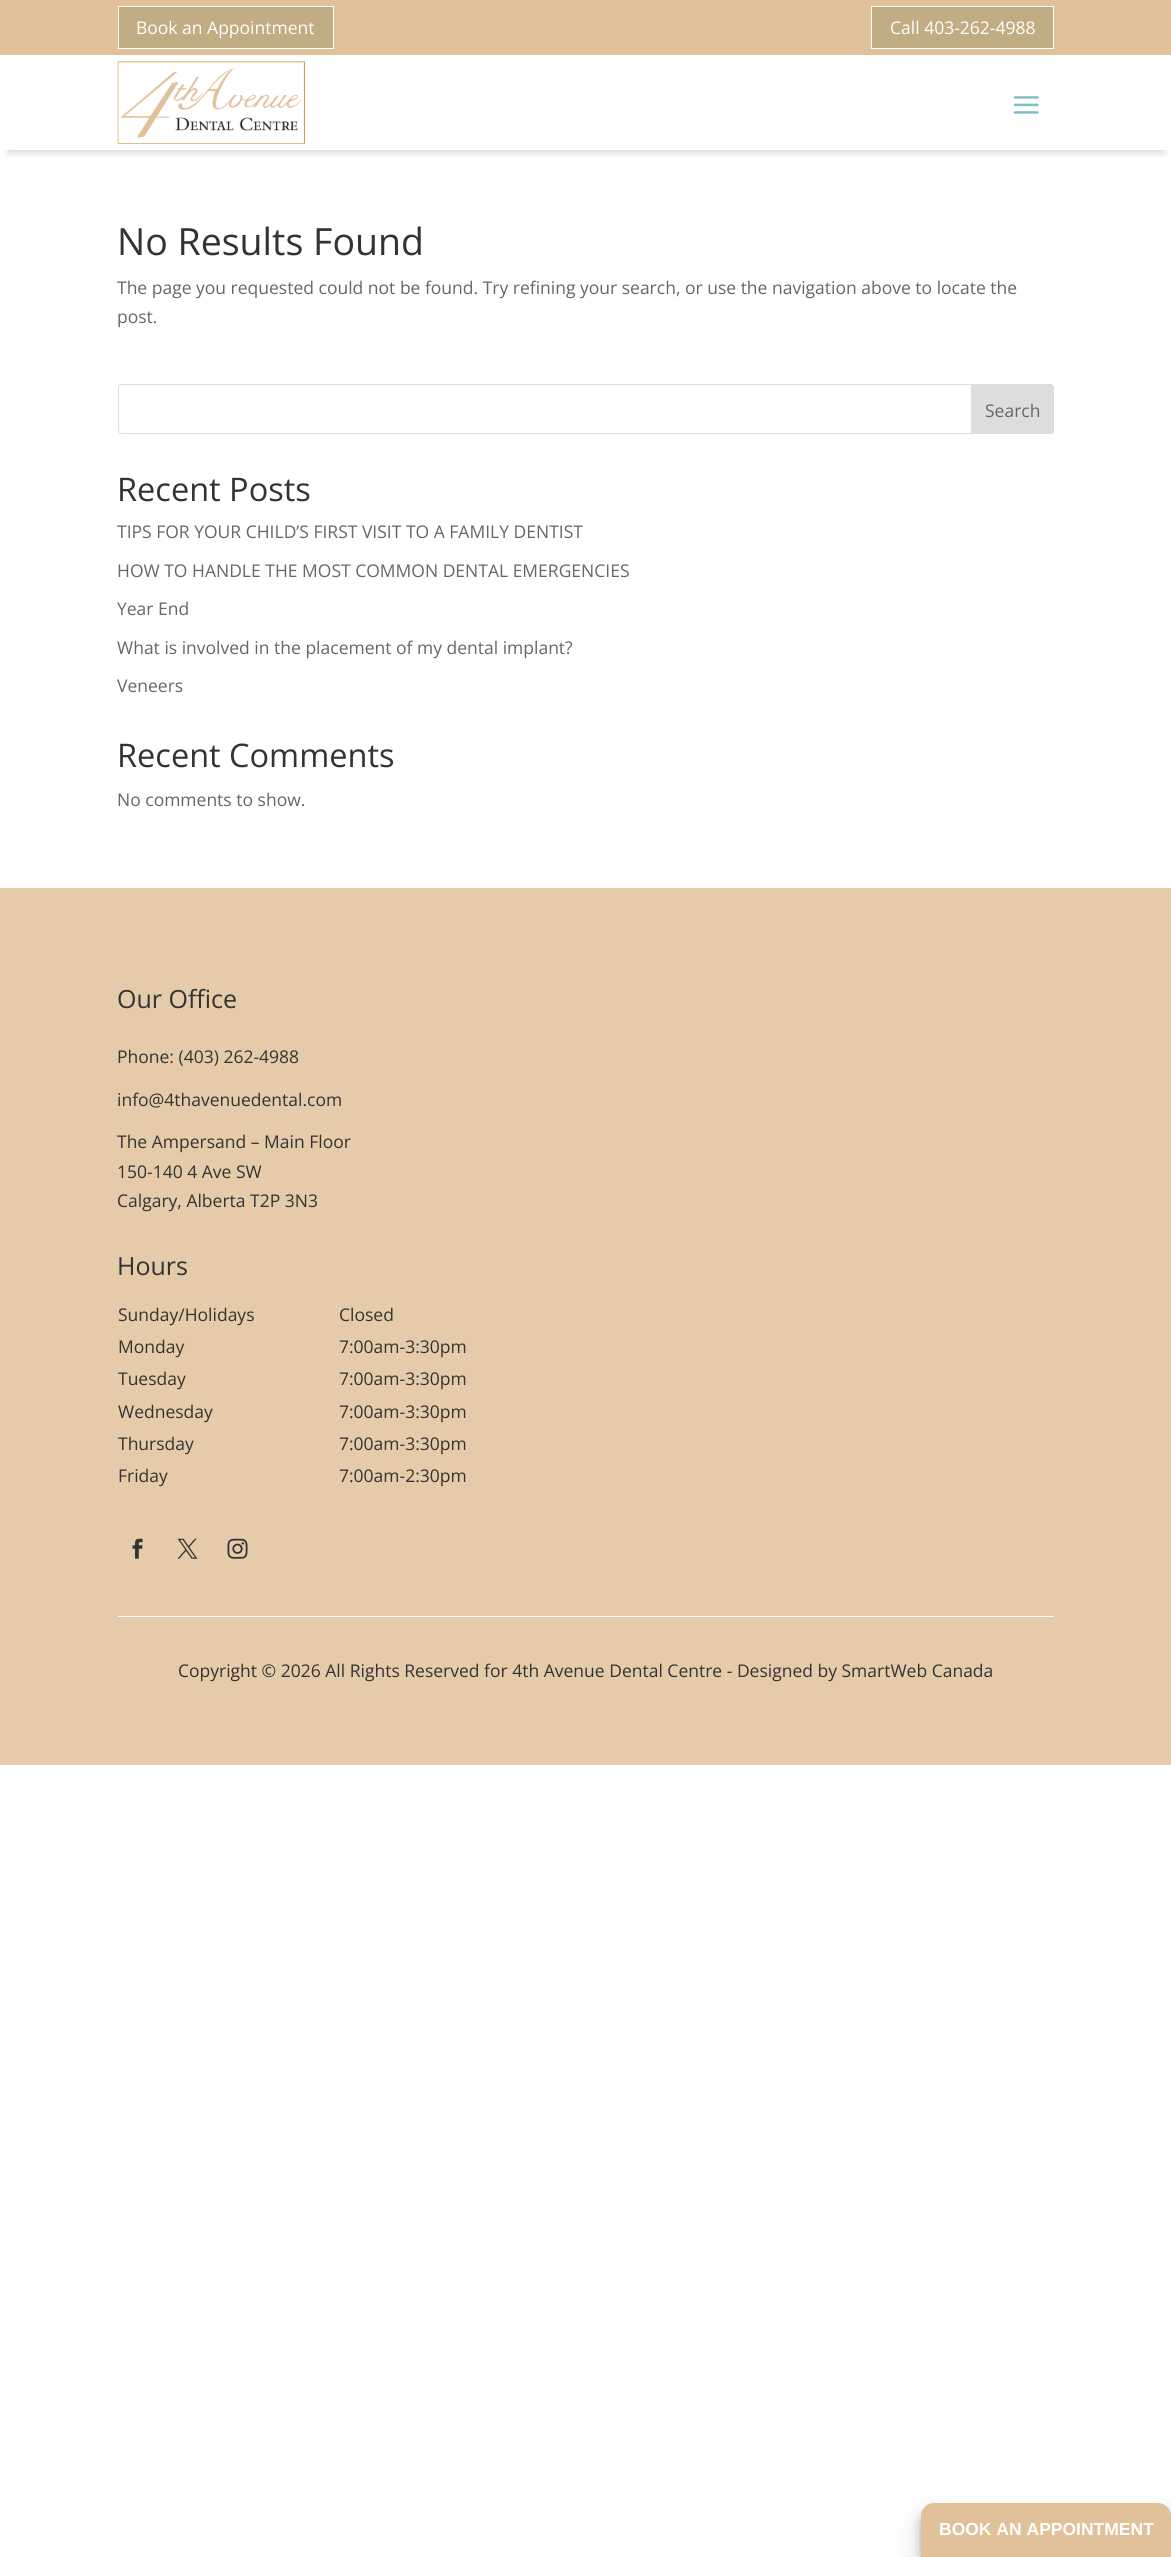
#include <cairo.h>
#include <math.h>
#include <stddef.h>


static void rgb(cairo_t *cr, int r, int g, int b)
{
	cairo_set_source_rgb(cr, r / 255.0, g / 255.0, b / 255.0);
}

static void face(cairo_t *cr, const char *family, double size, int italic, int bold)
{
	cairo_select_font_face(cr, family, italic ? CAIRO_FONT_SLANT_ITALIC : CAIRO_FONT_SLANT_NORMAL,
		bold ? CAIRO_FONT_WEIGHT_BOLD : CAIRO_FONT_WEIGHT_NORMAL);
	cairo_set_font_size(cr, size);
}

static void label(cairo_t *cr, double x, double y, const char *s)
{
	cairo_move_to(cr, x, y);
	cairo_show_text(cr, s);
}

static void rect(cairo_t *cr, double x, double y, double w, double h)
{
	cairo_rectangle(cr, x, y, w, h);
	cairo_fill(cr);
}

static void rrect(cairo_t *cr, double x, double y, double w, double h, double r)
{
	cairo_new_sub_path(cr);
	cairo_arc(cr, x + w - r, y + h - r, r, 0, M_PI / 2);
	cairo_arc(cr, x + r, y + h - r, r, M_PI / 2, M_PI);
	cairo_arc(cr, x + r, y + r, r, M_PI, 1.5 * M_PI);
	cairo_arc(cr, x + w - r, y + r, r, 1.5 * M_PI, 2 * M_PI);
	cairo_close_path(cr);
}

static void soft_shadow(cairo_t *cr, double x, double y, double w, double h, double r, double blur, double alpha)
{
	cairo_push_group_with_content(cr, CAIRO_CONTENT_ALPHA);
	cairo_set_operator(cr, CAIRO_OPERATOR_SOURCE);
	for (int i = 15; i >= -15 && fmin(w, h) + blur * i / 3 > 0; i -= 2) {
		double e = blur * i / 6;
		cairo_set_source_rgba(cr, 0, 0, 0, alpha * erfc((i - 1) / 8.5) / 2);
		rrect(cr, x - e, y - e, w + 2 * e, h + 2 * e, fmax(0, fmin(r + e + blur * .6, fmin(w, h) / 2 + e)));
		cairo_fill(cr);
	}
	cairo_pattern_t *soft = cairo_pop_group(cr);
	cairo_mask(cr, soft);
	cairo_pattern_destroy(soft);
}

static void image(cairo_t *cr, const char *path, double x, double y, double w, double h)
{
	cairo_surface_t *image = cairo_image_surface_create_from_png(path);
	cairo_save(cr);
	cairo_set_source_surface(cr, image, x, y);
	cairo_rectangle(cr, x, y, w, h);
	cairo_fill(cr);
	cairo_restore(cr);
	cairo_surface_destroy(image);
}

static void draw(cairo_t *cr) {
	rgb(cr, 255, 255, 255);
	cairo_paint(cr);
	rgb(cr, 224, 193, 153);
	rect(cr, 0, 0, 1171, 55);
	rgb(cr, 193, 172, 131);
	cairo_rectangle(cr, 118.5, 6.5, 215, 42);
	cairo_fill_preserve(cr);
	rgb(cr, 255, 255, 255);
	cairo_set_line_width(cr, 1);
	cairo_stroke(cr);
	face(cr, "Open Sans", 17.5, 0, 0);
	label(cr, 136, 34, "Book an Appointment");
	rgb(cr, 193, 172, 131);
	cairo_rectangle(cr, 871.5, 6.5, 182, 42);
	cairo_fill_preserve(cr);
	rgb(cr, 255, 255, 255);
	cairo_stroke(cr);
	label(cr, 890, 34, "Call 403-262-4988");
	cairo_save(cr);
	cairo_rectangle(cr, 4, 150, 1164, 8);
	cairo_clip(cr);
	rgb(cr, 0, 0, 0);
	soft_shadow(cr, 8, 73, 1156, 80, 0, 4, 0.16);
	cairo_restore(cr);
	image(cr, "image0.png", 117, 61, 188, 83);
	image(cr, "image1.png", 1013, 96, 26, 18);
	face(cr, "Open Sans", 37.5, 0, 0);
	rgb(cr, 51, 51, 51);
	label(cr, 117, 255, "No Results Found");
	face(cr, "Open Sans", 17.5, 0, 0);
	rgb(cr, 102, 102, 102);
	label(cr, 117, 294, "The page you requested could not be found. Try refining your search, or use the navigation above to locate the");
	label(cr, 117, 323, "post.");
	rrect(cr, 118.5, 384.5, 935, 49, 3.5);
	rgb(cr, 221, 221, 221);
	cairo_stroke(cr);
	cairo_new_path(cr);
	cairo_move_to(cr, 971.5, 384.5);
	cairo_line_to(cr, 1050, 384.5);
	cairo_curve_to(cr, 1052, 384.5, 1053.5, 386, 1053.5, 388);
	cairo_line_to(cr, 1053.5, 430);
	cairo_curve_to(cr, 1053.5, 432, 1052, 433.5, 1050, 433.5);
	cairo_line_to(cr, 971.5, 433.5);
	cairo_close_path(cr);
	cairo_fill_preserve(cr);
	cairo_stroke(cr);
	rgb(cr, 102, 102, 102);
	label(cr, 985, 417, "Search");
	face(cr, "Open Sans", 32.5, 0, 0);
	rgb(cr, 51, 51, 51);
	label(cr, 117, 501, "Recent Posts");
	face(cr, "Open Sans", 17.5, 0, 0);
	rgb(cr, 102, 102, 102);
	label(cr, 117, 538, "TIPS FOR YOUR CHILD’S FIRST VISIT TO A FAMILY DENTIST");
	label(cr, 117, 577, "HOW TO HANDLE THE MOST COMMON DENTAL EMERGENCIES");
	label(cr, 117, 615, "Year End");
	label(cr, 117, 654, "What is involved in the placement of my dental implant?");
	label(cr, 117, 692, "Veneers");
	face(cr, "Open Sans", 32.5, 0, 0);
	rgb(cr, 51, 51, 51);
	label(cr, 117, 767, "Recent Comments");
	face(cr, "Open Sans", 17.5, 0, 0);
	rgb(cr, 102, 102, 102);
	label(cr, 117, 806, "No comments to show.");
	rgb(cr, 229, 203, 169);
	rect(cr, 0, 888, 1171, 877);
	face(cr, "Open Sans", 25, 0, 0);
	rgb(cr, 51, 51, 51);
	label(cr, 117, 1008, "Our Office");
	face(cr, "Open Sans", 17.5, 0, 0);
	label(cr, 117, 1063, "Phone: (403) 262-4988");
	label(cr, 117, 1106, "info@4thavenuedental.com");
	label(cr, 117, 1148, "The Ampersand – Main Floor");
	label(cr, 117, 1178, "150-140 4 Ave SW");
	label(cr, 117, 1207, "Calgary, Alberta T2P 3N3");
	face(cr, "Open Sans", 25, 0, 0);
	label(cr, 117, 1275, "Hours");
	face(cr, "Open Sans", 17.5, 0, 0);
	label(cr, 118, 1321, "Sunday/Holidays");
	label(cr, 339, 1321, "Closed");
	label(cr, 118, 1353, "Monday");
	label(cr, 339, 1353, "7:00am-3:30pm");
	label(cr, 118, 1385, "Tuesday");
	label(cr, 339, 1385, "7:00am-3:30pm");
	label(cr, 118, 1418, "Wednesday");
	label(cr, 339, 1418, "7:00am-3:30pm");
	label(cr, 118, 1450, "Thursday");
	label(cr, 339, 1450, "7:00am-3:30pm");
	label(cr, 118, 1482, "Friday");
	label(cr, 339, 1482, "7:00am-2:30pm");
	image(cr, "image2.png", 132, 1538, 11, 21);
	image(cr, "image3.png", 177, 1538, 21, 21);
	image(cr, "image4.png", 227, 1538, 21, 21);
	rgb(cr, 255, 255, 255);
	rect(cr, 118, 1616, 936, 1);
	rgb(cr, 51, 51, 51);
	label(cr, 178, 1677, "Copyright © 2026 All Rights Reserved for 4th Avenue Dental Centre - Designed by SmartWeb Canada");
	rgb(cr, 0, 0, 0);
	soft_shadow(cr, 921, 2510, 250, 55, 13, 4, 0.23);
	soft_shadow(cr, 921, 2515, 250, 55, 13, 12.5, 0.19);
	rgb(cr, 224, 193, 153);
	cairo_new_path(cr);
	cairo_move_to(cr, 934, 2503);
	cairo_line_to(cr, 1158, 2503);
	cairo_curve_to(cr, 1165, 2503, 1171, 2509, 1171, 2516);
	cairo_line_to(cr, 1171, 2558);
	cairo_line_to(cr, 921, 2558);
	cairo_line_to(cr, 921, 2516);
	cairo_curve_to(cr, 921, 2509, 927, 2503, 934, 2503);
	cairo_close_path(cr);
	cairo_fill(cr);
	face(cr, "Liberation Sans", 17.5, 0, 1);
	rgb(cr, 255, 255, 255);
	label(cr, 939, 2535, "BOOK AN APPOINTMENT");
}

int main(void) {
	cairo_surface_t *surface = cairo_image_surface_create(CAIRO_FORMAT_RGB24, 1171, 2557);
	cairo_t *cr = cairo_create(surface);
	cairo_font_options_t *options = cairo_font_options_create();
	cairo_font_options_set_hint_metrics(options, CAIRO_HINT_METRICS_OFF);
	cairo_font_options_set_hint_style(options, CAIRO_HINT_STYLE_NONE);
	cairo_set_font_options(cr, options);
	cairo_set_miter_limit(cr, 4);
	draw(cr);
	cairo_surface_write_to_png(surface, "render.png");
	cairo_font_options_destroy(options);
	cairo_destroy(cr);
	cairo_surface_destroy(surface);
	return 0;
}
